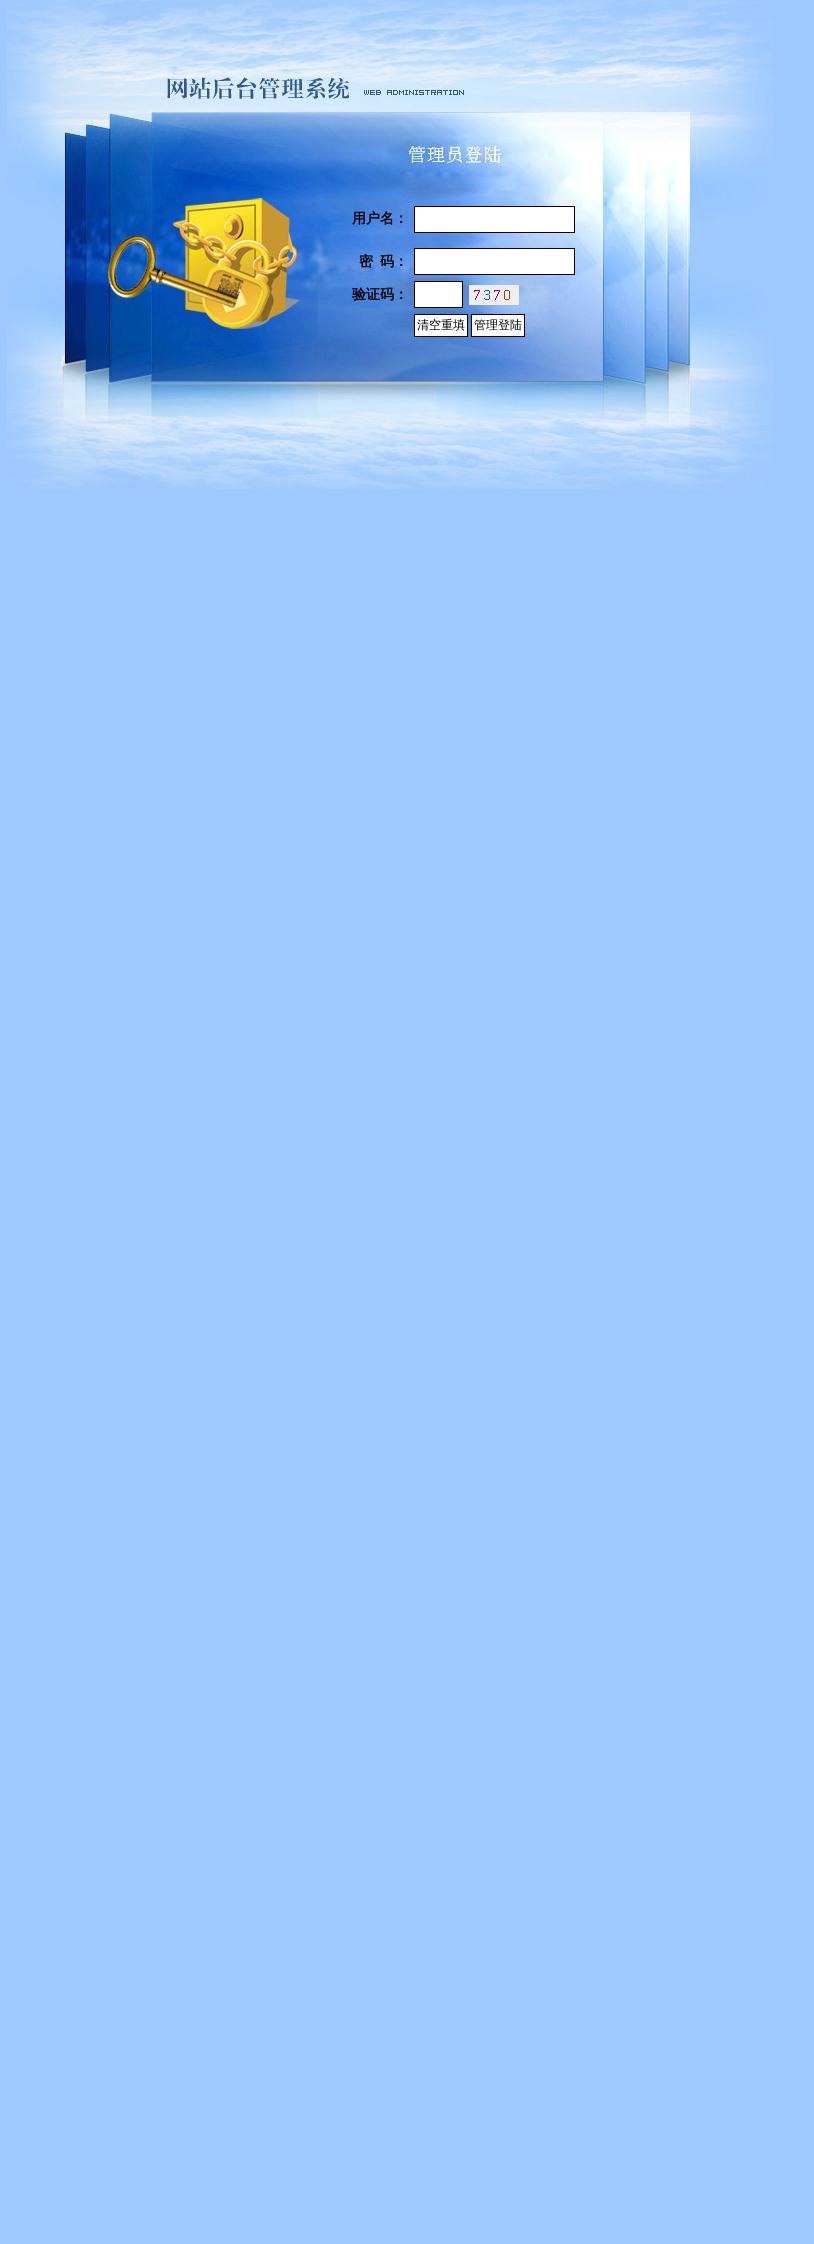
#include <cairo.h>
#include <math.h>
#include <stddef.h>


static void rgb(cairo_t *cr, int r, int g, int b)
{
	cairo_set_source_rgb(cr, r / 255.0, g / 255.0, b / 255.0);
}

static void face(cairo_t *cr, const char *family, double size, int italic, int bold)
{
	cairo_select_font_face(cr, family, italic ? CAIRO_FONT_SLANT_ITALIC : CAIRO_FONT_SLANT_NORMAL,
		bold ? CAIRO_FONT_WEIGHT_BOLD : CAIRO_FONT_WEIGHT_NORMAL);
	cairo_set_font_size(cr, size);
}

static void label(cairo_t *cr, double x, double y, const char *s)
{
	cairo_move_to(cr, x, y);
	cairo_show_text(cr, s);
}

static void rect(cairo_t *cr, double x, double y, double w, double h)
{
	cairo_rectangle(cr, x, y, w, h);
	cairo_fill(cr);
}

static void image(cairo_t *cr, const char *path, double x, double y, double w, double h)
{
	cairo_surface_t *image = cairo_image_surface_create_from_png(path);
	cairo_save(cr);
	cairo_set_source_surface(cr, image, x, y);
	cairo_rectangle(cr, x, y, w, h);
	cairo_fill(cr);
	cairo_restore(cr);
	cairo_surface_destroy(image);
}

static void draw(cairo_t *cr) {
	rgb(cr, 158, 201, 254);
	cairo_paint(cr);
	image(cr, "image0.png", 7, 0, 767, 489);
	face(cr, "WenQuanYi Zen Hei", 14, 0, 1);
	rgb(cr, 0, 0, 0);
	label(cr, 352, 223, "用户名：");
	rgb(cr, 255, 255, 255);
	cairo_rectangle(cr, 414.5, 206.5, 160, 26);
	cairo_fill_preserve(cr);
	rgb(cr, 0, 0, 0);
	cairo_set_line_width(cr, 1);
	cairo_stroke(cr);
	label(cr, 359, 266, "密");
	label(cr, 380, 266, "码：");
	rgb(cr, 255, 255, 255);
	cairo_rectangle(cr, 414.5, 248.5, 160, 26);
	cairo_fill_preserve(cr);
	rgb(cr, 0, 0, 0);
	cairo_stroke(cr);
	label(cr, 352, 299, "验证码：");
	rgb(cr, 255, 255, 255);
	cairo_rectangle(cr, 414.5, 281.5, 48, 26);
	cairo_fill_preserve(cr);
	rgb(cr, 0, 0, 0);
	cairo_stroke(cr);
	rgb(cr, 238, 238, 238);
	rect(cr, 469, 285, 50, 20);
	image(cr, "image1.png", 474, 290, 36, 10);
	rgb(cr, 255, 255, 255);
	cairo_rectangle(cr, 414.5, 314.5, 53, 22);
	cairo_fill_preserve(cr);
	rgb(cr, 0, 0, 0);
	cairo_stroke(cr);
	face(cr, "WenQuanYi Zen Hei Medium", 12, 0, 0);
	label(cr, 417, 329, "清空重填");
	rgb(cr, 255, 255, 255);
	cairo_rectangle(cr, 471.5, 314.5, 53, 22);
	cairo_fill_preserve(cr);
	rgb(cr, 0, 0, 0);
	cairo_stroke(cr);
	label(cr, 474, 329, "管理登陆");
}

int main(void) {
	cairo_surface_t *surface = cairo_image_surface_create(CAIRO_FORMAT_RGB24, 814, 2244);
	cairo_t *cr = cairo_create(surface);
	cairo_font_options_t *options = cairo_font_options_create();
	cairo_font_options_set_hint_metrics(options, CAIRO_HINT_METRICS_OFF);
	cairo_font_options_set_hint_style(options, CAIRO_HINT_STYLE_NONE);
	cairo_set_font_options(cr, options);
	cairo_set_miter_limit(cr, 4);
	draw(cr);
	cairo_surface_write_to_png(surface, "render.png");
	cairo_font_options_destroy(options);
	cairo_destroy(cr);
	cairo_surface_destroy(surface);
	return 0;
}
